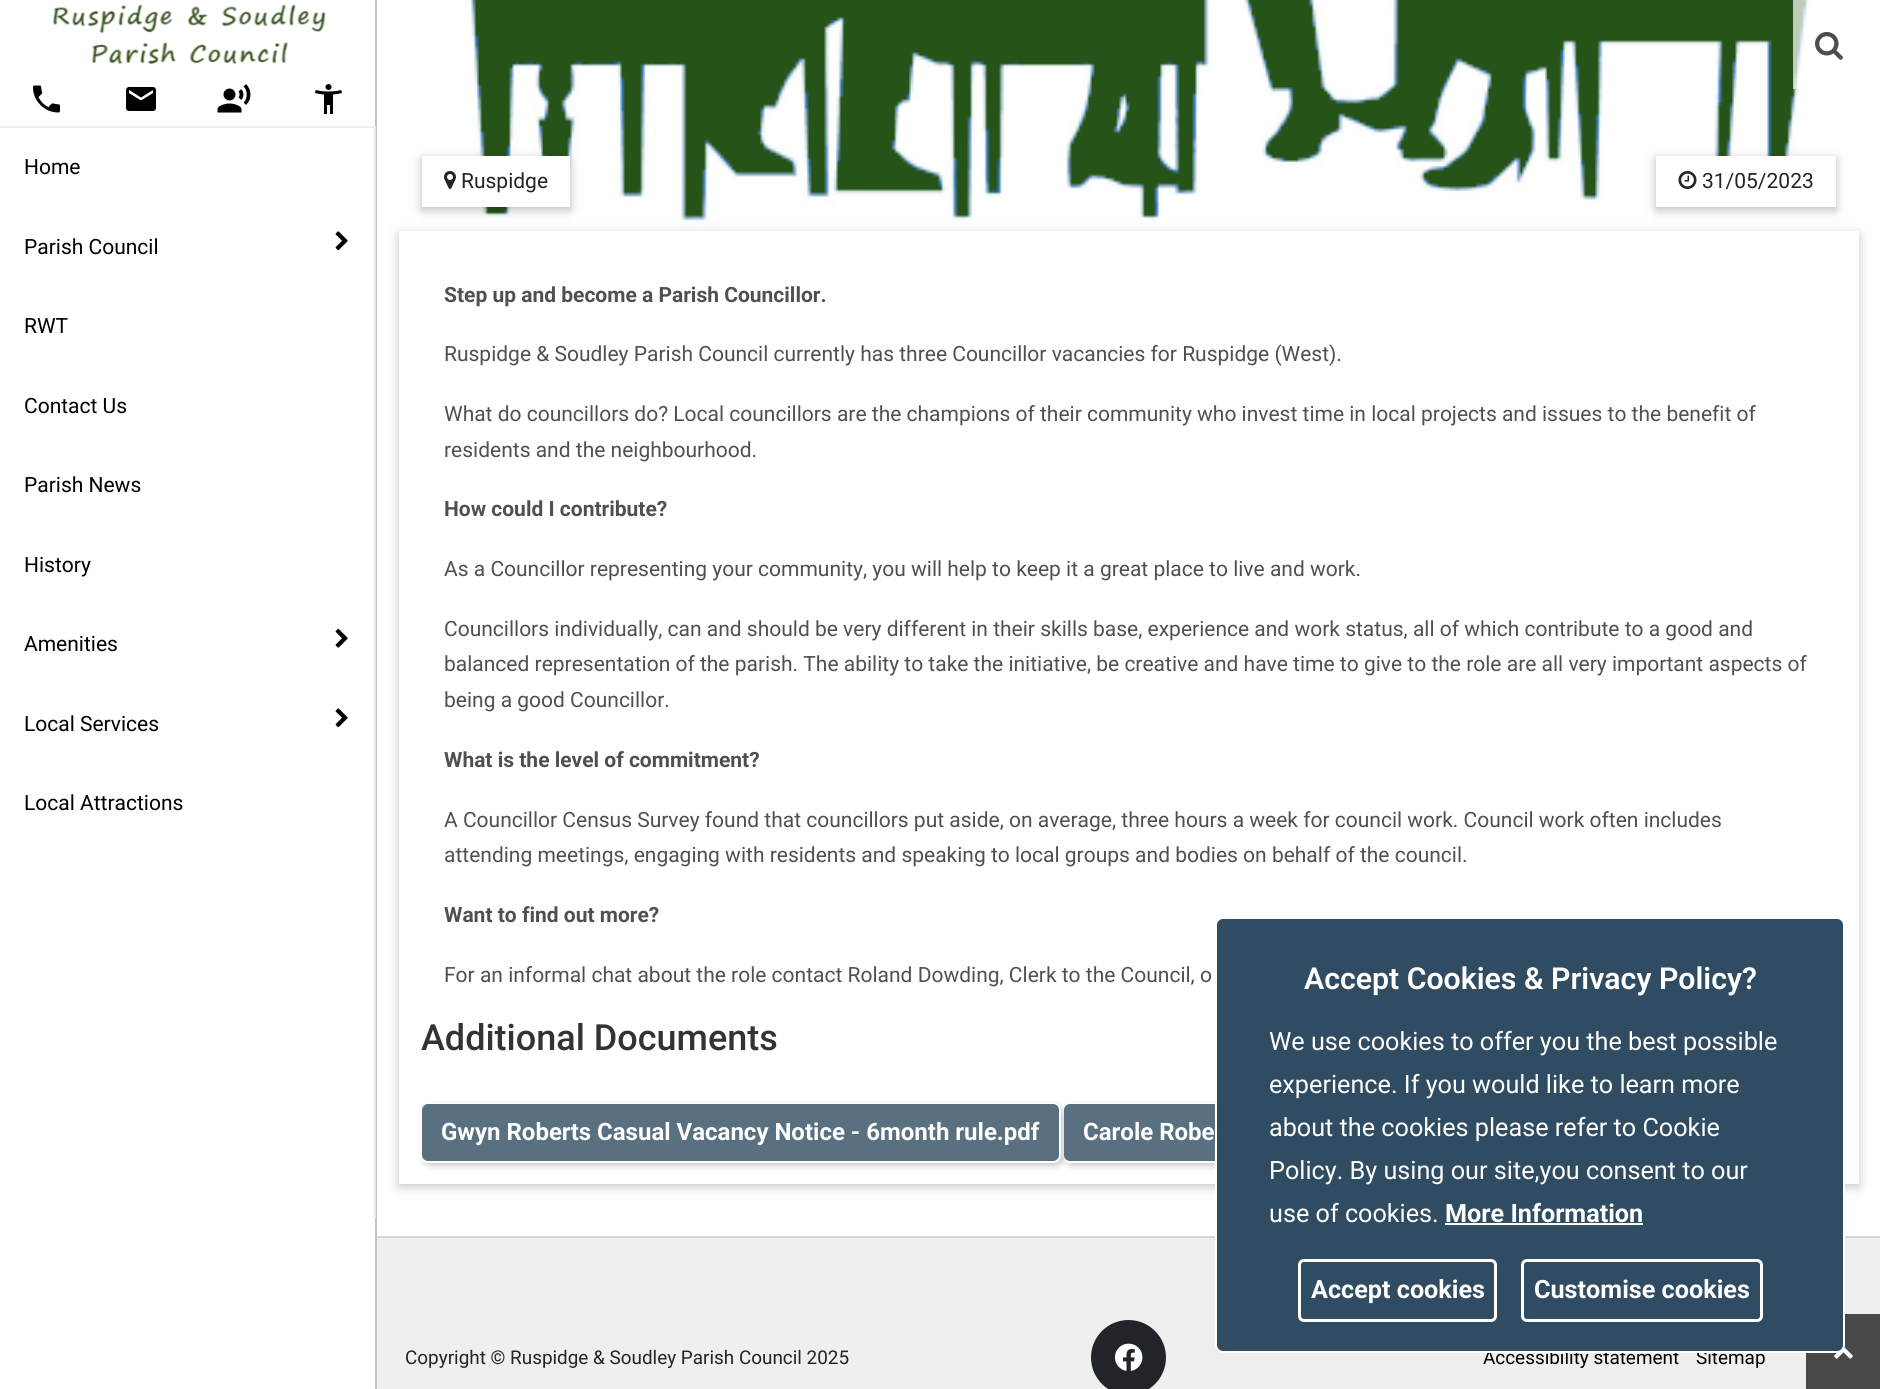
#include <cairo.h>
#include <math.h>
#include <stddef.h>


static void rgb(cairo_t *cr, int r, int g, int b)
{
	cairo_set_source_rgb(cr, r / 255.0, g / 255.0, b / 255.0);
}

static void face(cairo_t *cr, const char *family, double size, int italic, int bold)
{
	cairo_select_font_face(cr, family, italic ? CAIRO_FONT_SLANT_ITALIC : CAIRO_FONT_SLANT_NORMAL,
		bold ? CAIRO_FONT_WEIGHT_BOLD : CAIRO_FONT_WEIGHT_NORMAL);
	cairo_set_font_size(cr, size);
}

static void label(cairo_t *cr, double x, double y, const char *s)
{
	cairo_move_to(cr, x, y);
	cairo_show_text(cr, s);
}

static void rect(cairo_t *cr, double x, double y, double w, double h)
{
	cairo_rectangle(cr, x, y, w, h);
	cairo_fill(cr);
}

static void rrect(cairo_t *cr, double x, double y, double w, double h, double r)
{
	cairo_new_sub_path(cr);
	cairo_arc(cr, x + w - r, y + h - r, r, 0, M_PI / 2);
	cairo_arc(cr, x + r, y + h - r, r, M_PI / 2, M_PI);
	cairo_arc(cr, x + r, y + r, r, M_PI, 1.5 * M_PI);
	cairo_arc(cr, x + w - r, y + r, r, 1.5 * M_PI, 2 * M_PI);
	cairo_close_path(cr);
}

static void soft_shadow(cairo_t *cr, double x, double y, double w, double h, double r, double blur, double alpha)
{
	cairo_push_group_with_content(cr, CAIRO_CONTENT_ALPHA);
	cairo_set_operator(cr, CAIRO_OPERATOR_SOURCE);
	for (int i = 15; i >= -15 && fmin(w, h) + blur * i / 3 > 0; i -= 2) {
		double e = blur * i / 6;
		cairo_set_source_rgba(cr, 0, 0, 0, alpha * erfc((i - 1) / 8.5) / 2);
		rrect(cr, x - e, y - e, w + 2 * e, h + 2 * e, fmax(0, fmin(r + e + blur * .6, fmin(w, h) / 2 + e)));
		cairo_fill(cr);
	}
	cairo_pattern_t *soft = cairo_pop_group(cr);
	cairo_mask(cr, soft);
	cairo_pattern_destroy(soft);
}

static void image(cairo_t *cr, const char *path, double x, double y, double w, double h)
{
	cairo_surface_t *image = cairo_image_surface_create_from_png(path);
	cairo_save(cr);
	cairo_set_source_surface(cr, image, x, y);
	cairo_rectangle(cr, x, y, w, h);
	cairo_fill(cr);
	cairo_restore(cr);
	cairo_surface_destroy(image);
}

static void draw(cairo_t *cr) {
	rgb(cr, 255, 255, 255);
	cairo_paint(cr);
	image(cr, "image8.png", 469, 0, 1341, 227);
	cairo_set_source_rgba(cr, 1, 1, 1, 0.7);
	rect(cr, 1793, 0, 17, 89);
	image(cr, "image0.png", 1815, 31, 28, 29);
	cairo_save(cr);
	cairo_set_fill_rule(cr, CAIRO_FILL_RULE_EVEN_ODD);
	cairo_new_path(cr);
	cairo_move_to(cr, 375, 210);
	cairo_line_to(cr, 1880, 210);
	cairo_line_to(cr, 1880, 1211);
	cairo_line_to(cr, 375, 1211);
	cairo_close_path(cr);
	cairo_move_to(cr, 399, 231);
	cairo_line_to(cr, 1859, 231);
	cairo_line_to(cr, 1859, 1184);
	cairo_line_to(cr, 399, 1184);
	cairo_close_path(cr);
	cairo_clip(cr);
	rgb(cr, 0, 0, 0);
	soft_shadow(cr, 399, 234, 1460, 953, 0, 7.5, 0.1);
	cairo_restore(cr);
	rgb(cr, 194, 194, 194);
	rect(cr, 375, 0, 2, 1389);
	image(cr, "image1.png", 52, 4, 274, 60);
	image(cr, "image2.png", 33, 85, 27, 28);
	image(cr, "image3.png", 126, 87, 30, 24);
	image(cr, "image4.png", 217, 84, 34, 29);
	image(cr, "image5.png", 315, 84, 27, 30);
	rgb(cr, 239, 239, 239);
	rect(cr, 0, 126, 375, 2);
	rgb(cr, 234, 234, 234);
	rect(cr, 374, 126, 2, 1092);
	face(cr, "Roboto", 21, 0, 0);
	rgb(cr, 0, 0, 0);
	label(cr, 24, 174, "Home");
	label(cr, 24, 254, "Parish Council");
	image(cr, "image6.png", 335, 231, 13, 20);
	label(cr, 24, 333, "RWT");
	label(cr, 24, 413, "Contact Us");
	label(cr, 24, 492, "Parish News");
	label(cr, 24, 572, "History");
	label(cr, 24, 651, "Amenities");
	image(cr, "image7.png", 335, 628, 13, 20);
	label(cr, 24, 731, "Local Services");
	image(cr, "image6.png", 335, 708, 13, 20);
	label(cr, 24, 810, "Local Attractions");
	rgb(cr, 0, 0, 0);
	soft_shadow(cr, 422, 159, 148, 51, 0, 7.5, 0.12);
	soft_shadow(cr, 422, 159, 148, 51, 0, 4, 0.16);
	rgb(cr, 255, 255, 255);
	rect(cr, 422, 156, 148, 51);
	image(cr, "image9.png", 444, 171, 12, 18);
	rgb(cr, 33, 37, 41);
	label(cr, 461, 188, "Ruspidge");
	rgb(cr, 0, 0, 0);
	soft_shadow(cr, 1656, 159, 180, 51, 0, 7.5, 0.12);
	soft_shadow(cr, 1656, 159, 180, 51, 0, 4, 0.16);
	rgb(cr, 255, 255, 255);
	rect(cr, 1656, 156, 180, 51);
	image(cr, "image10.png", 1678, 171, 19, 18);
	rgb(cr, 33, 37, 41);
	label(cr, 1702, 188, "31/05/2023");
	cairo_save(cr);
	cairo_set_fill_rule(cr, CAIRO_FILL_RULE_EVEN_ODD);
	cairo_new_path(cr);
	cairo_move_to(cr, 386, 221);
	cairo_line_to(cr, 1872, 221);
	cairo_line_to(cr, 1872, 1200);
	cairo_line_to(cr, 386, 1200);
	cairo_close_path(cr);
	cairo_move_to(cr, 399, 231);
	cairo_line_to(cr, 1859, 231);
	cairo_line_to(cr, 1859, 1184);
	cairo_line_to(cr, 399, 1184);
	cairo_close_path(cr);
	cairo_clip(cr);
	rgb(cr, 0, 0, 0);
	soft_shadow(cr, 399, 234, 1460, 953, 0, 4, 0.13);
	cairo_restore(cr);
	face(cr, "Roboto", 21, 0, 1);
	rgb(cr, 77, 81, 84);
	label(cr, 444, 302, "Step up and become a Parish Councillor.");
	face(cr, "Roboto", 21, 0, 0);
	label(cr, 444, 361, "Ruspidge & Soudley Parish Council currently has three Councillor vacancies for Ruspidge (West).");
	label(cr, 444, 421, "What do councillors do? Local councillors are the champions of their community who invest time in local projects and issues to the benefit of");
	label(cr, 444, 457, "residents and the neighbourhood.");
	face(cr, "Roboto", 21, 0, 1);
	label(cr, 444, 516, "How could I contribute?");
	face(cr, "Roboto", 21, 0, 0);
	label(cr, 444, 576, "As a Councillor representing your community, you will help to keep it a great place to live and work.");
	label(cr, 444, 636, "Councillors individually, can and should be very different in their skills base, experience and work status, all of which contribute to a good and");
	label(cr, 444, 671, "balanced representation of the parish. The ability to take the initiative, be creative and have time to give to the role are all very important aspects of");
	label(cr, 444, 707, "being a good Councillor.");
	face(cr, "Roboto", 21, 0, 1);
	label(cr, 444, 767, "What is the level of commitment?");
	face(cr, "Roboto", 21, 0, 0);
	label(cr, 444, 827, "A Councillor Census Survey found that councillors put aside, on average, three hours a week for council work. Council work often includes");
	label(cr, 444, 862, "attending meetings, engaging with residents and speaking to local groups and bodies on behalf of the council.");
	face(cr, "Roboto", 21, 0, 1);
	label(cr, 444, 922, "Want to find out more?");
	face(cr, "Roboto", 21, 0, 0);
	label(cr, 444, 982, "For an informal chat about the role contact Roland Dowding, Clerk to the Council, o");
	face(cr, "Roboto Medium", 36, 0, 0);
	rgb(cr, 51, 51, 51);
	label(cr, 421, 1050, "Additional Documents");
	rgb(cr, 89, 112, 129);
	rrect(cr, 423, 1105, 635, 55, 5);
	cairo_fill_preserve(cr);
	cairo_stroke(cr);
	cairo_save(cr);
	cairo_set_fill_rule(cr, CAIRO_FILL_RULE_EVEN_ODD);
	cairo_new_path(cr);
	cairo_move_to(cr, 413, 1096);
	cairo_line_to(cr, 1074, 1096);
	cairo_line_to(cr, 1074, 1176);
	cairo_line_to(cr, 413, 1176);
	cairo_close_path(cr);
	cairo_move_to(cr, 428, 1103);
	cairo_line_to(cr, 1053, 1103);
	cairo_curve_to(cr, 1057.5, 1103, 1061, 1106.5, 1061, 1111);
	cairo_line_to(cr, 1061, 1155);
	cairo_curve_to(cr, 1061, 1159.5, 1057.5, 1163, 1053, 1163);
	cairo_line_to(cr, 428, 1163);
	cairo_curve_to(cr, 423.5, 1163, 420, 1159.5, 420, 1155);
	cairo_line_to(cr, 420, 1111);
	cairo_curve_to(cr, 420, 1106.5, 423.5, 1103, 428, 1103);
	cairo_close_path(cr);
	cairo_clip(cr);
	rgb(cr, 51, 51, 51);
	soft_shadow(cr, 423, 1106, 641, 60, 8, 3, 0.25);
	cairo_restore(cr);
	face(cr, "Roboto", 24, 0, 1);
	rgb(cr, 255, 255, 255);
	label(cr, 441, 1140, "Gwyn Roberts Casual Vacancy Notice - 6month rule.pdf");
	rgb(cr, 89, 112, 129);
	rrect(cr, 1065, 1105, 646, 55, 5);
	cairo_fill_preserve(cr);
	cairo_stroke(cr);
	cairo_save(cr);
	cairo_set_fill_rule(cr, CAIRO_FILL_RULE_EVEN_ODD);
	cairo_new_path(cr);
	cairo_move_to(cr, 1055, 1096);
	cairo_line_to(cr, 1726, 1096);
	cairo_line_to(cr, 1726, 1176);
	cairo_line_to(cr, 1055, 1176);
	cairo_close_path(cr);
	cairo_move_to(cr, 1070, 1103);
	cairo_line_to(cr, 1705, 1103);
	cairo_curve_to(cr, 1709.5, 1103, 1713, 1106.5, 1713, 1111);
	cairo_line_to(cr, 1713, 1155);
	cairo_curve_to(cr, 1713, 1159.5, 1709.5, 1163, 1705, 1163);
	cairo_line_to(cr, 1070, 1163);
	cairo_curve_to(cr, 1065.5, 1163, 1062, 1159.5, 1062, 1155);
	cairo_line_to(cr, 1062, 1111);
	cairo_curve_to(cr, 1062, 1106.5, 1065.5, 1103, 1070, 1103);
	cairo_close_path(cr);
	cairo_clip(cr);
	rgb(cr, 51, 51, 51);
	soft_shadow(cr, 1065, 1106, 651, 60, 8, 3, 0.25);
	cairo_restore(cr);
	rgb(cr, 255, 255, 255);
	label(cr, 1083, 1140, "Carole Robe");
	rgb(cr, 239, 239, 239);
	rect(cr, 377, 1238, 1503, 151);
	rgb(cr, 72, 72, 72);
	rect(cr, 1806, 1314, 74, 75);
	image(cr, "image11.png", 1834, 1347, 19, 12);
	rgb(cr, 215, 215, 215);
	rect(cr, 377, 1236, 1503, 2);
	face(cr, "Roboto", 18.9, 0, 0);
	rgb(cr, 0, 0, 0);
	label(cr, 1483, 1364, "Accessibility statement");
	label(cr, 1696, 1364, "Sitemap");
	rgb(cr, 47, 76, 98);
	rrect(cr, 1216, 918, 628, 434, 7);
	cairo_fill_preserve(cr);
	rgb(cr, 255, 255, 255);
	cairo_stroke(cr);
	face(cr, "Roboto SemiBold", 30.25, 0, 0);
	label(cr, 1304, 989, "Accept Cookies & Privacy Policy?");
	face(cr, "Roboto", 25.2, 0, 0);
	label(cr, 1269, 1050, "We use cookies to offer you the best possible");
	label(cr, 1269, 1093, "experience. If you would like to learn more");
	label(cr, 1269, 1136, "about the cookies please refer to Cookie");
	label(cr, 1269, 1179, "Policy. By using our site,you consent to our");
	label(cr, 1269, 1222, "use of cookies.");
	face(cr, "Roboto", 25.2, 0, 1);
	label(cr, 1445, 1222, "More Information");
	rect(cr, 1445, 1223, 198, 2);
	rrect(cr, 1299.5, 1260.5, 196, 60, 4.5);
	cairo_set_line_width(cr, 3);
	cairo_stroke(cr);
	label(cr, 1311, 1298, "Accept cookies");
	rrect(cr, 1522.5, 1260.5, 239, 60, 4.5);
	cairo_stroke(cr);
	label(cr, 1534, 1298, "Customise cookies");
	face(cr, "Roboto", 18.9, 0, 0);
	rgb(cr, 33, 37, 41);
	label(cr, 405, 1364, "Copyright © Ruspidge & Soudley Parish Council 2025");
	cairo_new_path(cr);
	cairo_arc(cr, 1128.5, 1357.5, 37.5, 0, 2 * M_PI);
	cairo_fill(cr);
	image(cr, "image12.png", 1114, 1343, 29, 28);
}

int main(void) {
	cairo_surface_t *surface = cairo_image_surface_create(CAIRO_FORMAT_RGB24, 1880, 1389);
	cairo_t *cr = cairo_create(surface);
	cairo_font_options_t *options = cairo_font_options_create();
	cairo_font_options_set_hint_metrics(options, CAIRO_HINT_METRICS_OFF);
	cairo_font_options_set_hint_style(options, CAIRO_HINT_STYLE_NONE);
	cairo_set_font_options(cr, options);
	cairo_set_miter_limit(cr, 4);
	draw(cr);
	cairo_surface_write_to_png(surface, "render.png");
	cairo_font_options_destroy(options);
	cairo_destroy(cr);
	cairo_surface_destroy(surface);
	return 0;
}
